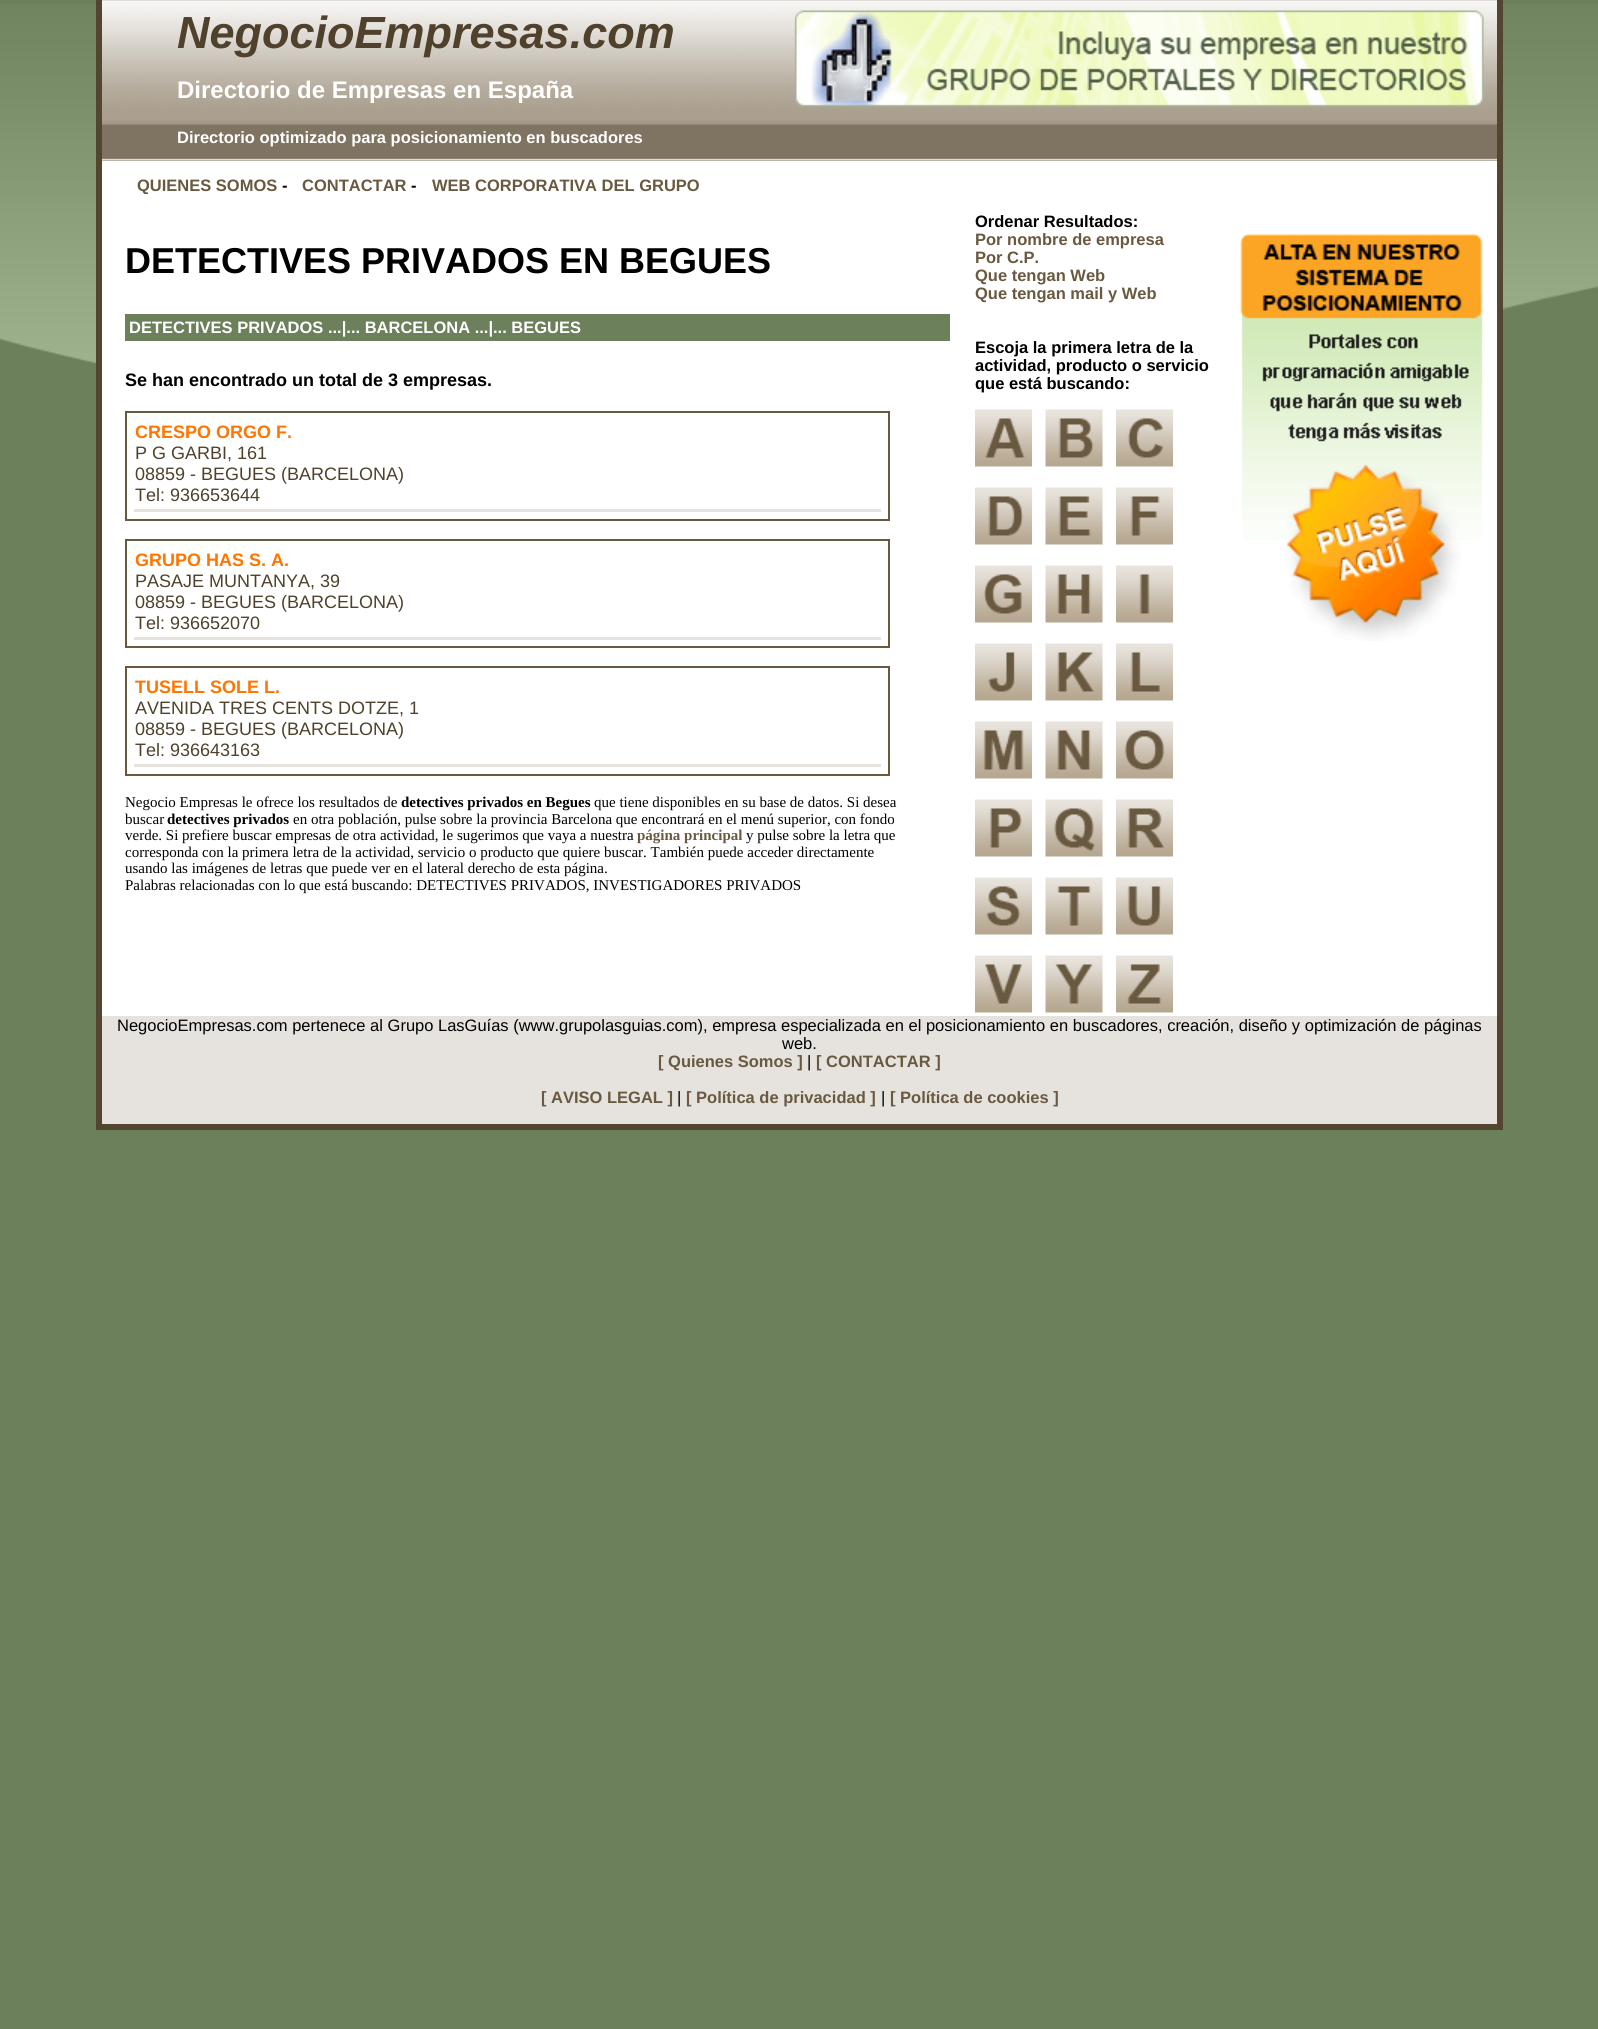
#include <cairo.h>
#include <math.h>
#include <stddef.h>


static void rgb(cairo_t *cr, int r, int g, int b)
{
	cairo_set_source_rgb(cr, r / 255.0, g / 255.0, b / 255.0);
}

static void face(cairo_t *cr, const char *family, double size, int italic, int bold)
{
	cairo_select_font_face(cr, family, italic ? CAIRO_FONT_SLANT_ITALIC : CAIRO_FONT_SLANT_NORMAL,
		bold ? CAIRO_FONT_WEIGHT_BOLD : CAIRO_FONT_WEIGHT_NORMAL);
	cairo_set_font_size(cr, size);
}

static void label(cairo_t *cr, double x, double y, const char *s)
{
	cairo_move_to(cr, x, y);
	cairo_show_text(cr, s);
}

static void rect(cairo_t *cr, double x, double y, double w, double h)
{
	cairo_rectangle(cr, x, y, w, h);
	cairo_fill(cr);
}

static void image(cairo_t *cr, const char *path, double x, double y, double w, double h)
{
	cairo_surface_t *image = cairo_image_surface_create_from_png(path);
	cairo_save(cr);
	cairo_set_source_surface(cr, image, x, y);
	cairo_rectangle(cr, x, y, w, h);
	cairo_fill(cr);
	cairo_restore(cr);
	cairo_surface_destroy(image);
}

static void draw(cairo_t *cr) {
	rgb(cr, 108, 128, 91);
	cairo_paint(cr);
	image(cr, "image0.png", 0, 4, 1598, 430);
	rgb(cr, 255, 255, 255);
	rect(cr, 102, 161, 1395, 855);
	rgb(cr, 83, 70, 49);
	rect(cr, 1497, 0, 6, 1130);
	rect(cr, 96, 0, 6, 1016);
	rgb(cr, 127, 114, 97);
	rect(cr, 102, 160, 1395, 1);
	image(cr, "image1.png", 102, 0, 1395, 161);
	face(cr, "Liberation Sans", 45, 1, 1);
	rgb(cr, 79, 65, 43);
	label(cr, 177, 48, "NegocioEmpresas.com");
	image(cr, "image2.png", 792, 10, 696, 97);
	face(cr, "Liberation Sans", 24, 0, 1);
	rgb(cr, 255, 255, 255);
	label(cr, 177, 98, "Directorio de Empresas en España");
	face(cr, "Liberation Sans", 16.5, 0, 1);
	label(cr, 177, 143, "Directorio optimizado para posicionamiento en buscadores");
	rgb(cr, 105, 89, 64);
	label(cr, 137, 191, "QUIENES SOMOS");
	rgb(cr, 0, 0, 0);
	label(cr, 282, 191, "-");
	rgb(cr, 105, 89, 64);
	label(cr, 302, 191, "CONTACTAR");
	rgb(cr, 0, 0, 0);
	label(cr, 411, 191, "-");
	rgb(cr, 105, 89, 64);
	label(cr, 432, 191, "WEB CORPORATIVA DEL GRUPO");
	rgb(cr, 255, 255, 255);
	rect(cr, 144, 194, 4, 1);
	face(cr, "Liberation Sans", 36, 0, 1);
	rgb(cr, 0, 0, 0);
	label(cr, 125, 273, "DETECTIVES PRIVADOS EN BEGUES");
	rgb(cr, 108, 128, 91);
	rect(cr, 125, 314, 825, 27);
	face(cr, "Liberation Sans", 16.5, 0, 1);
	rgb(cr, 255, 255, 255);
	label(cr, 129, 333, "DETECTIVES PRIVADOS ...|... BARCELONA ...|... BEGUES");
	face(cr, "Liberation Sans", 18, 0, 1);
	rgb(cr, 0, 0, 0);
	label(cr, 125, 386, "Se han encontrado un total de 3 empresas.");
	cairo_rectangle(cr, 126, 412, 763, 108);
	rgb(cr, 105, 89, 64);
	cairo_stroke(cr);
	rgb(cr, 255, 117, 0);
	label(cr, 135, 438, "CRESPO ORGO F.");
	face(cr, "Liberation Sans", 18, 0, 0);
	rgb(cr, 79, 65, 43);
	label(cr, 135, 459, "P G GARBI, 161");
	label(cr, 135, 480, "08859 - BEGUES (BARCELONA)");
	label(cr, 135, 501, "Tel: 936653644");
	rgb(cr, 230, 227, 222);
	rect(cr, 134, 509, 747, 3);
	cairo_rectangle(cr, 126, 540, 763, 107);
	rgb(cr, 105, 89, 64);
	cairo_stroke(cr);
	face(cr, "Liberation Sans", 18, 0, 1);
	rgb(cr, 255, 117, 0);
	label(cr, 135, 566, "GRUPO HAS S. A.");
	face(cr, "Liberation Sans", 18, 0, 0);
	rgb(cr, 79, 65, 43);
	label(cr, 135, 587, "PASAJE MUNTANYA, 39");
	label(cr, 135, 608, "08859 - BEGUES (BARCELONA)");
	label(cr, 135, 629, "Tel: 936652070");
	rgb(cr, 230, 227, 222);
	rect(cr, 134, 637, 747, 3);
	cairo_rectangle(cr, 126, 667, 763, 108);
	rgb(cr, 105, 89, 64);
	cairo_stroke(cr);
	face(cr, "Liberation Sans", 18, 0, 1);
	rgb(cr, 255, 117, 0);
	label(cr, 135, 693, "TUSELL SOLE L.");
	face(cr, "Liberation Sans", 18, 0, 0);
	rgb(cr, 79, 65, 43);
	label(cr, 135, 714, "AVENIDA TRES CENTS DOTZE, 1");
	label(cr, 135, 735, "08859 - BEGUES (BARCELONA)");
	label(cr, 135, 756, "Tel: 936643163");
	rgb(cr, 230, 227, 222);
	rect(cr, 134, 764, 747, 3);
	face(cr, "Liberation Serif", 15, 0, 0);
	rgb(cr, 0, 0, 0);
	label(cr, 125, 807, "Negocio Empresas le ofrece los resultados de");
	face(cr, "Liberation Serif", 15, 0, 1);
	label(cr, 401, 807, "detectives privados en Begues");
	face(cr, "Liberation Serif", 15, 0, 0);
	label(cr, 594, 807, "que tiene disponibles en su base de datos. Si desea");
	label(cr, 125, 824, "buscar");
	face(cr, "Liberation Serif", 15, 0, 1);
	label(cr, 167, 824, "detectives privados");
	face(cr, "Liberation Serif", 15, 0, 0);
	label(cr, 293, 824, "en otra población, pulse sobre la provincia Barcelona que encontrará en el menú superior, con fondo");
	label(cr, 125, 840, "verde. Si prefiere buscar empresas de otra actividad, le sugerimos que vaya a nuestra");
	face(cr, "Liberation Serif", 15, 0, 1);
	rgb(cr, 105, 89, 64);
	label(cr, 637, 840, "página principal");
	face(cr, "Liberation Serif", 15, 0, 0);
	rgb(cr, 0, 0, 0);
	label(cr, 746, 840, "y pulse sobre la letra que");
	label(cr, 125, 857, "corresponda con la primera letra de la actividad, servicio o producto que quiere buscar. También puede acceder directamente");
	label(cr, 125, 873, "usando las imágenes de letras que puede ver en el lateral derecho de esta página.");
	label(cr, 125, 890, "Palabras relacionadas con lo que está buscando: DETECTIVES PRIVADOS, INVESTIGADORES PRIVADOS");
	face(cr, "Liberation Sans", 16.5, 0, 1);
	label(cr, 975, 227, "Ordenar Resultados:");
	rgb(cr, 105, 89, 64);
	label(cr, 975, 245, "Por nombre de empresa");
	label(cr, 975, 263, "Por C.P.");
	label(cr, 975, 281, "Que tengan Web");
	label(cr, 975, 299, "Que tengan mail y Web");
	rgb(cr, 0, 0, 0);
	label(cr, 975, 353, "Escoja la primera letra de la");
	label(cr, 975, 371, "actividad, producto o servicio");
	label(cr, 975, 389, "que está buscando:");
	image(cr, "image3.png", 975, 409, 57, 58);
	image(cr, "image4.png", 1045, 409, 58, 58);
	image(cr, "image5.png", 1116, 409, 57, 58);
	image(cr, "image6.png", 975, 487, 57, 58);
	image(cr, "image7.png", 1045, 487, 58, 58);
	image(cr, "image8.png", 1116, 487, 57, 58);
	image(cr, "image9.png", 975, 565, 57, 58);
	image(cr, "image10.png", 1045, 565, 58, 58);
	image(cr, "image11.png", 1116, 565, 57, 58);
	image(cr, "image12.png", 975, 643, 57, 58);
	image(cr, "image13.png", 1045, 643, 58, 58);
	image(cr, "image14.png", 1116, 643, 57, 58);
	image(cr, "image15.png", 975, 721, 57, 58);
	image(cr, "image16.png", 1045, 721, 58, 58);
	image(cr, "image17.png", 1116, 721, 57, 58);
	image(cr, "image18.png", 975, 799, 57, 58);
	image(cr, "image19.png", 1045, 799, 58, 58);
	image(cr, "image20.png", 1116, 799, 57, 58);
	image(cr, "image21.png", 975, 877, 57, 58);
	image(cr, "image22.png", 1045, 877, 58, 58);
	image(cr, "image23.png", 1116, 877, 57, 58);
	image(cr, "image24.png", 975, 955, 57, 58);
	image(cr, "image25.png", 1045, 955, 58, 58);
	image(cr, "image26.png", 1116, 955, 57, 58);
	image(cr, "image27.png", 1240, 233, 243, 408);
	rgb(cr, 230, 227, 222);
	rect(cr, 102, 1016, 1395, 108);
	rgb(cr, 83, 70, 49);
	rect(cr, 96, 1124, 1407, 6);
	rect(cr, 96, 1016, 6, 114);
	face(cr, "Liberation Sans", 16.5, 0, 0);
	rgb(cr, 0, 0, 0);
	label(cr, 117, 1031, "NegocioEmpresas.com pertenece al Grupo LasGuías (www.grupolasguias.com), empresa especializada en el posicionamiento en buscadores, creación, diseño y optimización de páginas");
	label(cr, 782, 1049, "web.");
	face(cr, "Liberation Sans", 16.5, 0, 1);
	rgb(cr, 105, 89, 64);
	label(cr, 658, 1067, "[ Quienes Somos ]");
	face(cr, "Liberation Sans", 16.5, 0, 0);
	rgb(cr, 0, 0, 0);
	label(cr, 807, 1067, "|");
	face(cr, "Liberation Sans", 16.5, 0, 1);
	rgb(cr, 105, 89, 64);
	label(cr, 816, 1067, "[ CONTACTAR ]");
	label(cr, 541, 1103, "[ AVISO LEGAL ]");
	face(cr, "Liberation Sans", 16.5, 0, 0);
	rgb(cr, 0, 0, 0);
	label(cr, 677, 1103, "|");
	face(cr, "Liberation Sans", 16.5, 0, 1);
	rgb(cr, 105, 89, 64);
	label(cr, 686, 1103, "[ Política de privacidad ]");
	face(cr, "Liberation Sans", 16.5, 0, 0);
	rgb(cr, 0, 0, 0);
	label(cr, 881, 1103, "|");
	face(cr, "Liberation Sans", 16.5, 0, 1);
	rgb(cr, 105, 89, 64);
	label(cr, 890, 1103, "[ Política de cookies ]");
}

int main(void) {
	cairo_surface_t *surface = cairo_image_surface_create(CAIRO_FORMAT_RGB24, 1598, 2029);
	cairo_t *cr = cairo_create(surface);
	cairo_font_options_t *options = cairo_font_options_create();
	cairo_font_options_set_hint_metrics(options, CAIRO_HINT_METRICS_OFF);
	cairo_font_options_set_hint_style(options, CAIRO_HINT_STYLE_NONE);
	cairo_set_font_options(cr, options);
	cairo_set_miter_limit(cr, 4);
	draw(cr);
	cairo_surface_write_to_png(surface, "render.png");
	cairo_font_options_destroy(options);
	cairo_destroy(cr);
	cairo_surface_destroy(surface);
	return 0;
}
